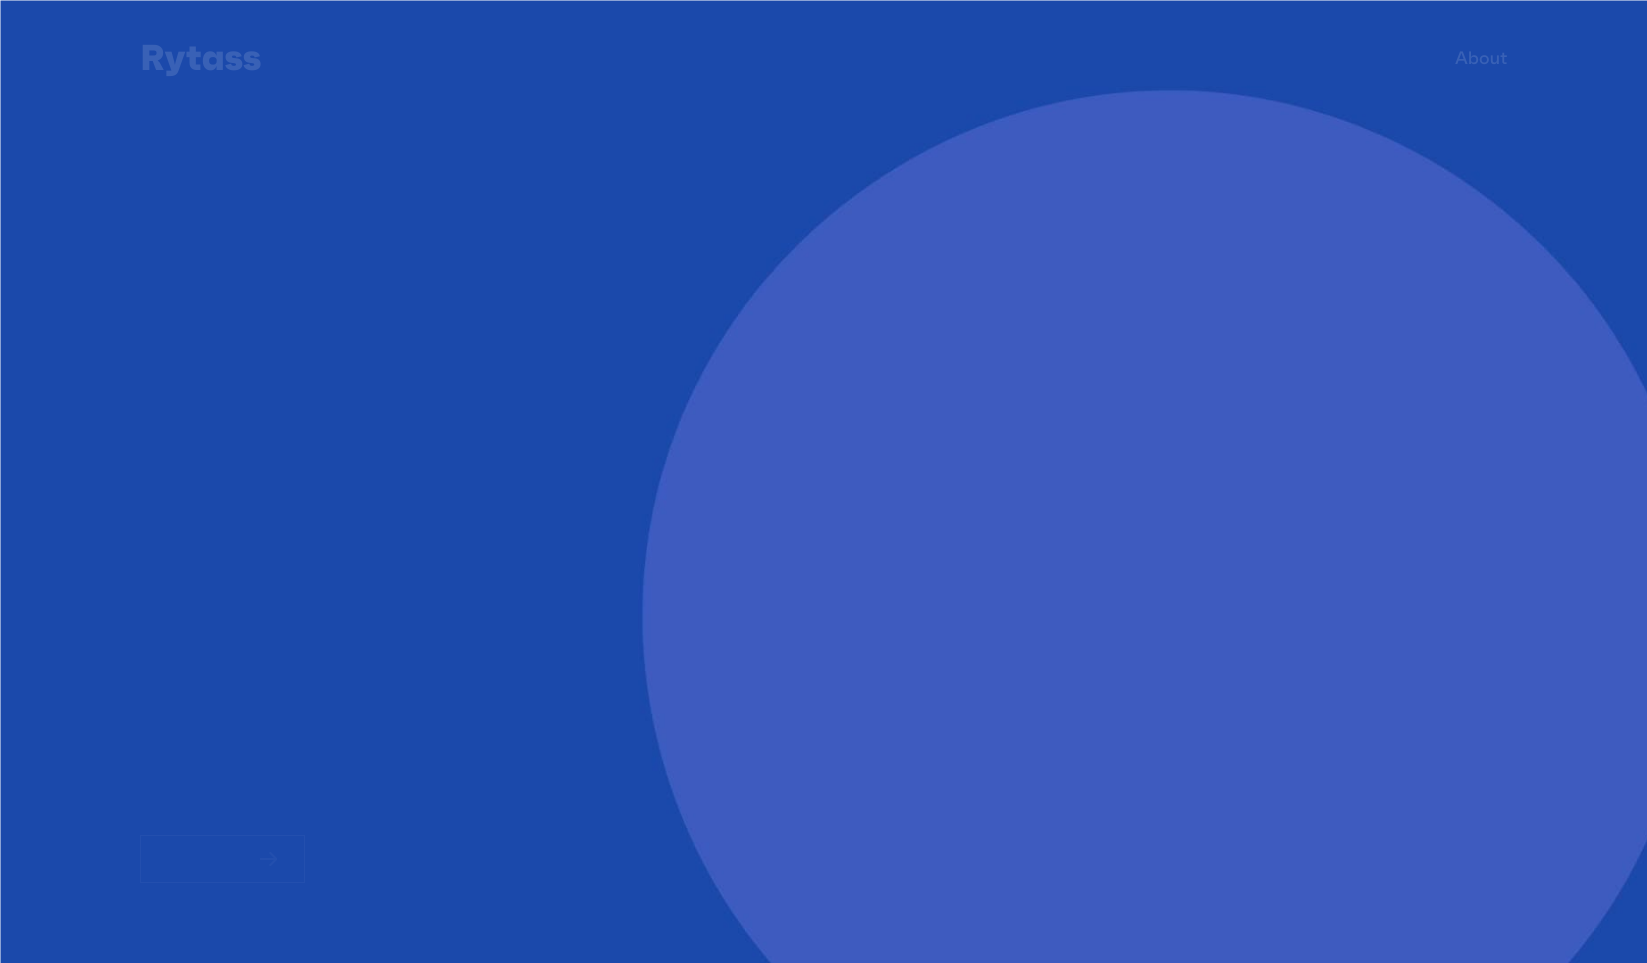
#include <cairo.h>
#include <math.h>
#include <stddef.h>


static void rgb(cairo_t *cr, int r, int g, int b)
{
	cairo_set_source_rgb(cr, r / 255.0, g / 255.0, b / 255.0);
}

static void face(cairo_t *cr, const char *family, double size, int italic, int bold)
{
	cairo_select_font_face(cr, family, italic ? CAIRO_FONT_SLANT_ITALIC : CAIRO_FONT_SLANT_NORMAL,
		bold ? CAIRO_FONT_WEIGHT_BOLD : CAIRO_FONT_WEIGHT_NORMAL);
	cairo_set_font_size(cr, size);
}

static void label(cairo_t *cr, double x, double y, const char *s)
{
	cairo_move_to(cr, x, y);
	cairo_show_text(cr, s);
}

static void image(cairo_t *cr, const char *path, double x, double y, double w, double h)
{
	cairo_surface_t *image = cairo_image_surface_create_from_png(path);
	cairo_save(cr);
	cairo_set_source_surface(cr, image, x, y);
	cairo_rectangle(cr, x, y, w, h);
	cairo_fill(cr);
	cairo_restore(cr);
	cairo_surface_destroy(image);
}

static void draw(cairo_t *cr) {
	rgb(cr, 255, 255, 255);
	cairo_paint(cr);
	image(cr, "image0.png", 0, 0, 1647, 963);
	face(cr, "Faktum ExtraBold", 36, 0, 0);
	rgb(cr, 57, 97, 182);
	label(cr, 140, 70, "Rytass");
	face(cr, "Faktum Medium", 18, 0, 0);
	label(cr, 1455, 64, "About");
	cairo_rectangle(cr, 140.5, 835.5, 164, 47);
	rgb(cr, 35, 79, 174);
	cairo_set_line_width(cr, 1);
	cairo_stroke(cr);
	image(cr, "image1.png", 260, 852, 17, 14);
}

int main(void) {
	cairo_surface_t *surface = cairo_image_surface_create(CAIRO_FORMAT_RGB24, 1647, 963);
	cairo_t *cr = cairo_create(surface);
	cairo_font_options_t *options = cairo_font_options_create();
	cairo_font_options_set_hint_metrics(options, CAIRO_HINT_METRICS_OFF);
	cairo_font_options_set_hint_style(options, CAIRO_HINT_STYLE_NONE);
	cairo_set_font_options(cr, options);
	cairo_set_miter_limit(cr, 4);
	draw(cr);
	cairo_surface_write_to_png(surface, "render.png");
	cairo_font_options_destroy(options);
	cairo_destroy(cr);
	cairo_surface_destroy(surface);
	return 0;
}
